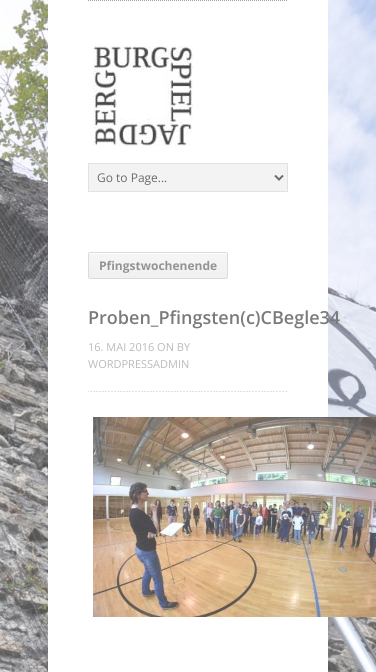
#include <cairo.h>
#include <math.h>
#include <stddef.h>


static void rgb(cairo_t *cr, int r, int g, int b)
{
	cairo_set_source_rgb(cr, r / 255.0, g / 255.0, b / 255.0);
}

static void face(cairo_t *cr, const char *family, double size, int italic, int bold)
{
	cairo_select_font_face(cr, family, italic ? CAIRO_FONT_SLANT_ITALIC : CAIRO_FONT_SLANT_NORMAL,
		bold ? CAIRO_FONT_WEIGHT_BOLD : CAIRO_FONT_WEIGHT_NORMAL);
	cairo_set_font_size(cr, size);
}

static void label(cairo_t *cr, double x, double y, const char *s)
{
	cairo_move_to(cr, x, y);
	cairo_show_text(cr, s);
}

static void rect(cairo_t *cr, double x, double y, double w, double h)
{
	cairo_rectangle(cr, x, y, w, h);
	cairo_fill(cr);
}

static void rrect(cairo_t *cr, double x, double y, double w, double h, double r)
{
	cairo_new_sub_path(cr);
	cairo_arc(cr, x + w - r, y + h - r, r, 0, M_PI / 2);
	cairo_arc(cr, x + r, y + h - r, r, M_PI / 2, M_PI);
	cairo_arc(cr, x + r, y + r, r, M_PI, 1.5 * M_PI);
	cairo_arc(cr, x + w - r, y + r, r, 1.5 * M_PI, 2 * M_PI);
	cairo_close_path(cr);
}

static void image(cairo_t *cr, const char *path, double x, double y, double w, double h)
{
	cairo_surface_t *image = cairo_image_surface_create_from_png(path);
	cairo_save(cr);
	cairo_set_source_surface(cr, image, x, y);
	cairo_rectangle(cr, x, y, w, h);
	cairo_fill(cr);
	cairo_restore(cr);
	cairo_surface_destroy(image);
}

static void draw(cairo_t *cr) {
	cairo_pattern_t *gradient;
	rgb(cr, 255, 255, 255);
	cairo_paint(cr);
	image(cr, "image0.png", 0, 0, 376, 672);
	rgb(cr, 255, 255, 255);
	rect(cr, 48, 0, 280, 672);
	cairo_new_path(cr);
	cairo_move_to(cr, 88, 0.5);
	cairo_line_to(cr, 288, 0.5);
	rgb(cr, 162, 162, 162);
	cairo_set_line_width(cr, 1);
	cairo_set_dash(cr, (double[]){1, 1}, 2, 0);
	cairo_stroke(cr);
	image(cr, "image1.png", 93, 46, 100, 100);
	rgb(cr, 243, 243, 243);
	cairo_rectangle(cr, 88.5, 163.5, 199, 28);
	cairo_fill_preserve(cr);
	rgb(cr, 226, 226, 226);
	cairo_set_dash(cr, NULL, 0, 0);
	cairo_stroke(cr);
	cairo_new_path(cr);
	cairo_move_to(cr, 275, 175.5);
	cairo_line_to(cr, 279, 179.5);
	cairo_line_to(cr, 283, 175.5);
	rgb(cr, 107, 107, 107);
	cairo_set_line_width(cr, 2);
	cairo_stroke(cr);
	face(cr, "Open Sans", 12, 0, 0);
	label(cr, 97, 182, "Go to Page...");
	cairo_save(cr);
	rrect(cr, 88, 252, 140, 27, 2);
	cairo_clip(cr);
	gradient = cairo_pattern_create_linear(158, 253, 158, 278);
	cairo_pattern_add_color_stop_rgba(gradient, 0, 0.965, 0.965, 0.965, 1);
	cairo_pattern_add_color_stop_rgba(gradient, 1, 0.941, 0.941, 0.941, 1);
	cairo_set_source(cr, gradient);
	cairo_pattern_destroy(gradient);
	rect(cr, 88, 253, 140, 25);
	cairo_restore(cr);
	rgb(cr, 255, 255, 255);
	cairo_new_path(cr);
	cairo_move_to(cr, 90, 254);
	cairo_line_to(cr, 226, 254);
	cairo_curve_to(cr, 227, 254, 227, 254, 227, 255);
	cairo_curve_to(cr, 227, 254, 227, 253, 226, 253);
	cairo_line_to(cr, 90, 253);
	cairo_curve_to(cr, 89, 253, 89, 254, 89, 255);
	cairo_curve_to(cr, 89, 254, 89, 254, 90, 254);
	cairo_close_path(cr);
	cairo_fill(cr);
	rrect(cr, 88.5, 252.5, 139, 26, 1.5);
	rgb(cr, 219, 219, 219);
	cairo_set_line_width(cr, 1);
	cairo_stroke(cr);
	face(cr, "Open Sans", 12, 0, 1);
	rgb(cr, 148, 148, 148);
	label(cr, 99, 270, "Pfingstwochenende");
	image(cr, "image2.png", 88, 391, 199, 1);
	face(cr, "Open Sans SemiBold", 18, 0, 0);
	rgb(cr, 123, 123, 123);
	label(cr, 88, 324, "Proben_Pfingsten(c)CBegle34");
	face(cr, "Open Sans", 11, 0, 0);
	rgb(cr, 186, 186, 186);
	label(cr, 88, 351, "16. MAI 2016 ON BY");
	label(cr, 88, 368, "WORDPRESSADMIN");
	image(cr, "image3.png", 93, 417, 283, 200);
}

int main(void) {
	cairo_surface_t *surface = cairo_image_surface_create(CAIRO_FORMAT_RGB24, 376, 672);
	cairo_t *cr = cairo_create(surface);
	cairo_font_options_t *options = cairo_font_options_create();
	cairo_font_options_set_hint_metrics(options, CAIRO_HINT_METRICS_OFF);
	cairo_font_options_set_hint_style(options, CAIRO_HINT_STYLE_NONE);
	cairo_set_font_options(cr, options);
	cairo_set_miter_limit(cr, 4);
	draw(cr);
	cairo_surface_write_to_png(surface, "render.png");
	cairo_font_options_destroy(options);
	cairo_destroy(cr);
	cairo_surface_destroy(surface);
	return 0;
}
